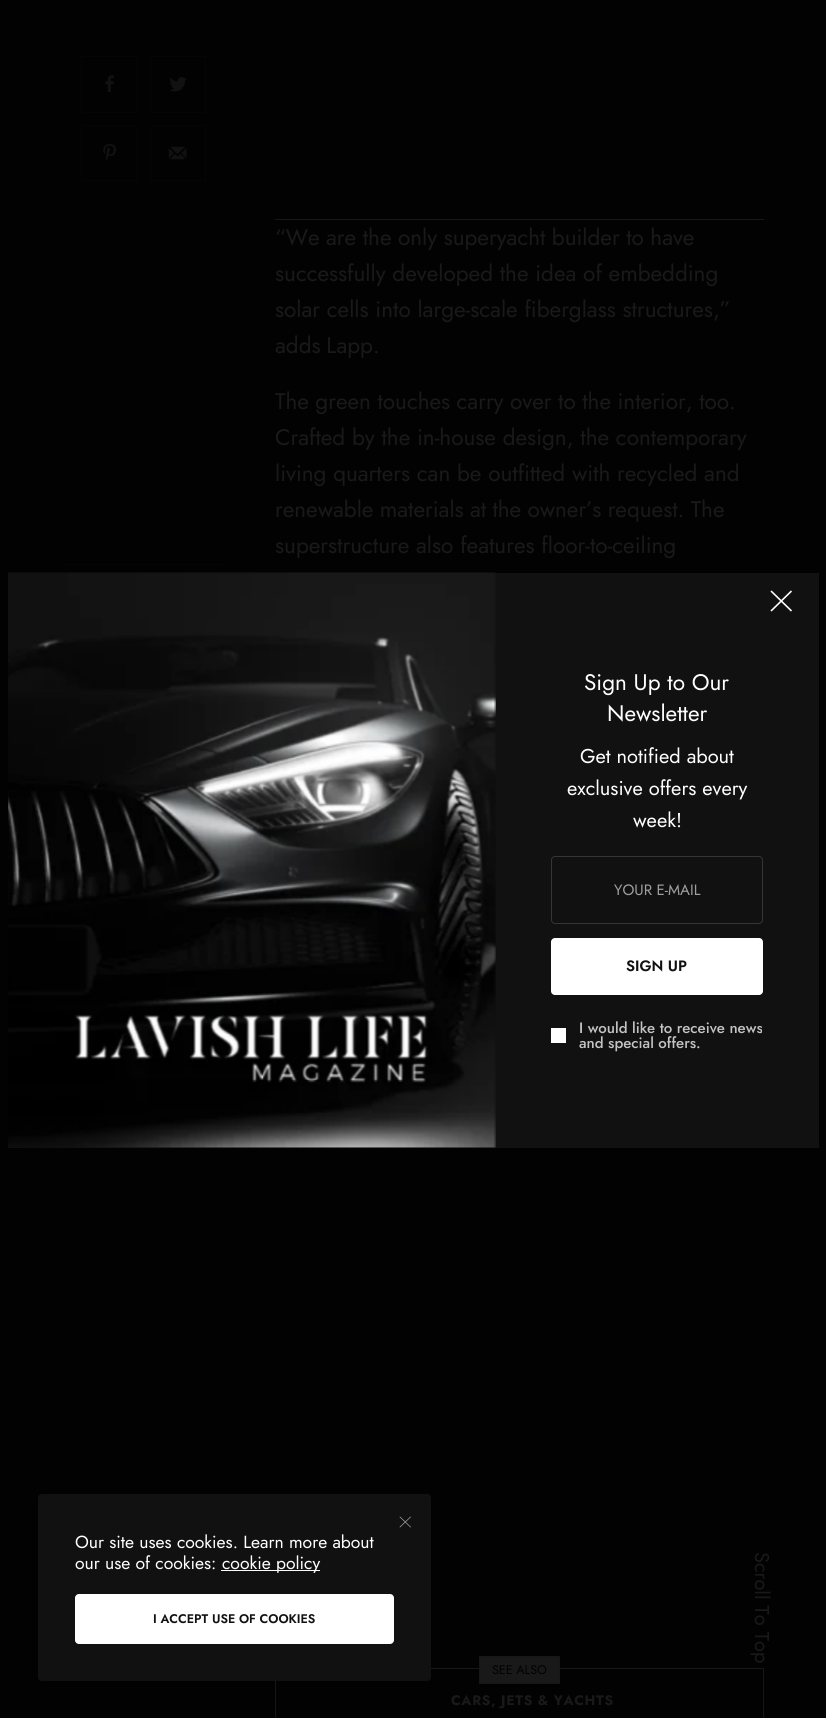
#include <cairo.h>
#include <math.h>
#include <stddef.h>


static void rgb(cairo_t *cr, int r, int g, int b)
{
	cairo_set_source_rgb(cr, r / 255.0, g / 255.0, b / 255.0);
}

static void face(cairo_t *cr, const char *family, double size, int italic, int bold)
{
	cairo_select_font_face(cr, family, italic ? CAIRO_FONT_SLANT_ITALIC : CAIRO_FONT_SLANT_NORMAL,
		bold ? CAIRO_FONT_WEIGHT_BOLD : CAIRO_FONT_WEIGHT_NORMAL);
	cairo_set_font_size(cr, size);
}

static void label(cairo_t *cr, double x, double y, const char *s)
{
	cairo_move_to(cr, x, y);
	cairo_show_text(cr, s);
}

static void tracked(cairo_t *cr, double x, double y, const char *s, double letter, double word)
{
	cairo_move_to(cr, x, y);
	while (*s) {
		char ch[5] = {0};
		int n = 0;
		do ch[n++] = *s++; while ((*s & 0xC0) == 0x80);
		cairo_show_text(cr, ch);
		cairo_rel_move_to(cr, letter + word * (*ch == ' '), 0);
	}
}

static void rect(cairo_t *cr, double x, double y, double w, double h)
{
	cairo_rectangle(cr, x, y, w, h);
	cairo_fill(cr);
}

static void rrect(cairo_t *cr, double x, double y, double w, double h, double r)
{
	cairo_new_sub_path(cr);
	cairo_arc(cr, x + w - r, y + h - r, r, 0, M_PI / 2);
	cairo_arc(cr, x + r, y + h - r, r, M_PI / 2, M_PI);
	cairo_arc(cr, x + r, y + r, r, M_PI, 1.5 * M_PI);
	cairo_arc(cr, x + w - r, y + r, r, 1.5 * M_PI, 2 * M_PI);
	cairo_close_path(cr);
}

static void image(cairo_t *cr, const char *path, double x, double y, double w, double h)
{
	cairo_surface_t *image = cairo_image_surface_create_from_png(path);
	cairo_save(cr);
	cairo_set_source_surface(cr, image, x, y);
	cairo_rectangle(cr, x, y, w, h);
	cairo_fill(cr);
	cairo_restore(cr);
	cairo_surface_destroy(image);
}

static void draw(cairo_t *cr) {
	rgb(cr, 2, 2, 2);
	cairo_paint(cr);
	cairo_rectangle(cr, 275.5, 1668.5, 488, 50);
	rgb(cr, 23, 23, 23);
	cairo_set_line_width(cr, 1);
	cairo_stroke(cr);
	rgb(cr, 17, 17, 17);
	rrect(cr, 38, 1494, 393, 187, 4);
	cairo_fill(cr);
	rgb(cr, 163, 163, 163);
	cairo_new_path(cr);
	cairo_move_to(cr, 400, 1516.5);
	cairo_line_to(cr, 411, 1527);
	cairo_line_to(cr, 410.5, 1527.5);
	cairo_line_to(cr, 399.5, 1517);
	cairo_close_path(cr);
	cairo_fill(cr);
	cairo_new_path(cr);
	cairo_move_to(cr, 399.5, 1527);
	cairo_line_to(cr, 410.5, 1516.5);
	cairo_line_to(cr, 411, 1517);
	cairo_line_to(cr, 400, 1527.5);
	cairo_close_path(cr);
	cairo_fill(cr);
	face(cr, "Jost", 17.5, 0, 0);
	rgb(cr, 255, 255, 255);
	label(cr, 75, 1548, "Our site uses cookies. Learn more about");
	label(cr, 75, 1569, "our use of cookies:");
	rect(cr, 221, 1570, 99, 1);
	label(cr, 222, 1569, "cookie policy");
	rrect(cr, 75, 1594, 319, 50, 4);
	cairo_fill(cr);
	face(cr, "Jost SemiBold", 12.5, 0, 0);
	rgb(cr, 17, 17, 17);
	label(cr, 153, 1623, "I ACCEPT USE OF COOKIES");
	cairo_rectangle(cr, 81.5, 56.5, 56, 56);
	rgb(cr, 5, 5, 5);
	cairo_stroke(cr);
	image(cr, "image0.png", 105, 75, 9, 17);
	cairo_rectangle(cr, 150.5, 56.5, 55, 56);
	cairo_stroke(cr);
	image(cr, "image1.png", 169, 77, 18, 15);
	cairo_rectangle(cr, 81.5, 125.5, 56, 55);
	cairo_stroke(cr);
	image(cr, "image2.png", 103, 144, 13, 17);
	cairo_rectangle(cr, 150.5, 125.5, 55, 55);
	cairo_stroke(cr);
	image(cr, "image3.png", 168, 146, 19, 14);
	rect(cr, 63, 564, 162, 1);
	rgb(cr, 23, 23, 23);
	rect(cr, 275, 219, 489, 1);
	face(cr, "Jost", 22.5, 0, 0);
	rgb(cr, 25, 25, 25);
	tracked(cr, 275, 245, "“We are the only superyacht builder to have", 0, -0.25);
	label(cr, 275, 281, "successfully developed the idea of embedding");
	label(cr, 275, 317, "solar cells into large-scale fiberglass structures,”");
	tracked(cr, 275, 353, "adds Lapp.", 0, -1);
	tracked(cr, 275, 409, "The green touches carry over to the interior, too.", 0, -0.25);
	label(cr, 275, 445, "Crafted by the in-house design, the contemporary");
	label(cr, 275, 481, "living quarters can be outfitted with recycled and");
	tracked(cr, 275, 517, "renewable materials at the owner’s request. The", 0, -0.5);
	label(cr, 275, 553, "superstructure also features floor-to-ceiling");
	cairo_rectangle(cr, 479.5, 1656.5, 80, 27);
	cairo_fill_preserve(cr);
	rgb(cr, 23, 23, 23);
	cairo_stroke(cr);
	face(cr, "Jost", 12.5, 0, 0);
	rgb(cr, 1, 1, 1);
	label(cr, 492, 1674, "SEE ALSO");
	face(cr, "Jost", 13.75, 0, 1);
	rgb(cr, 25, 25, 25);
	tracked(cr, 451, 1705, "CARS, JETS & YACHTS", 0.7, 0);
	face(cr, "Jost", 20, 0, 0);
	cairo_save(cr);
	cairo_translate(cr, 755, 1552);
	cairo_rotate(cr, 90 * M_PI / 180);
	label(cr, 0, 0, "Scroll To Top");
	cairo_restore(cr);
	rgb(cr, 17, 17, 17);
	rect(cr, 8, 573, 811, 575);
	image(cr, "image4.png", 8, 572, 488, 576);
	cairo_new_path(cr);
	cairo_move_to(cr, 771, 591);
	cairo_line_to(cr, 791.5, 611);
	cairo_move_to(cr, 771, 611);
	cairo_line_to(cr, 791.5, 591);
	rgb(cr, 255, 255, 255);
	cairo_set_line_width(cr, 1.6);
	cairo_stroke(cr);
	face(cr, "Jost", 22.5, 0, 0);
	label(cr, 584, 690, "Sign Up to Our");
	label(cr, 607, 721, "Newsletter");
	face(cr, "Jost", 20, 0, 0);
	label(cr, 580, 763, "Get notified about");
	label(cr, 567, 795, "exclusive offers every");
	label(cr, 633, 827, "week!");
	rrect(cr, 551.5, 856.5, 211, 67, 3.5);
	rgb(cr, 53, 53, 53);
	cairo_set_line_width(cr, 1);
	cairo_stroke(cr);
	face(cr, "Jost", 15, 0, 0);
	rgb(cr, 160, 160, 160);
	label(cr, 614, 895, "YOUR E-MAIL");
	rgb(cr, 255, 255, 255);
	rrect(cr, 551, 938, 212, 57, 4);
	cairo_fill(cr);
	face(cr, "Jost SemiBold", 15, 0, 0);
	rgb(cr, 17, 17, 17);
	label(cr, 626, 971, "SIGN UP");
	rgb(cr, 255, 255, 255);
	rect(cr, 551, 1028, 15, 15);
	face(cr, "Jost Medium", 15, 0, 0);
	rgb(cr, 196, 196, 196);
	label(cr, 579, 1033, "I would like to receive news");
	label(cr, 579, 1048, "and special offers.");
}

int main(void) {
	cairo_surface_t *surface = cairo_image_surface_create(CAIRO_FORMAT_RGB24, 826, 1718);
	cairo_t *cr = cairo_create(surface);
	cairo_font_options_t *options = cairo_font_options_create();
	cairo_font_options_set_hint_metrics(options, CAIRO_HINT_METRICS_OFF);
	cairo_font_options_set_hint_style(options, CAIRO_HINT_STYLE_NONE);
	cairo_set_font_options(cr, options);
	cairo_set_miter_limit(cr, 4);
	draw(cr);
	cairo_surface_write_to_png(surface, "render.png");
	cairo_font_options_destroy(options);
	cairo_destroy(cr);
	cairo_surface_destroy(surface);
	return 0;
}
